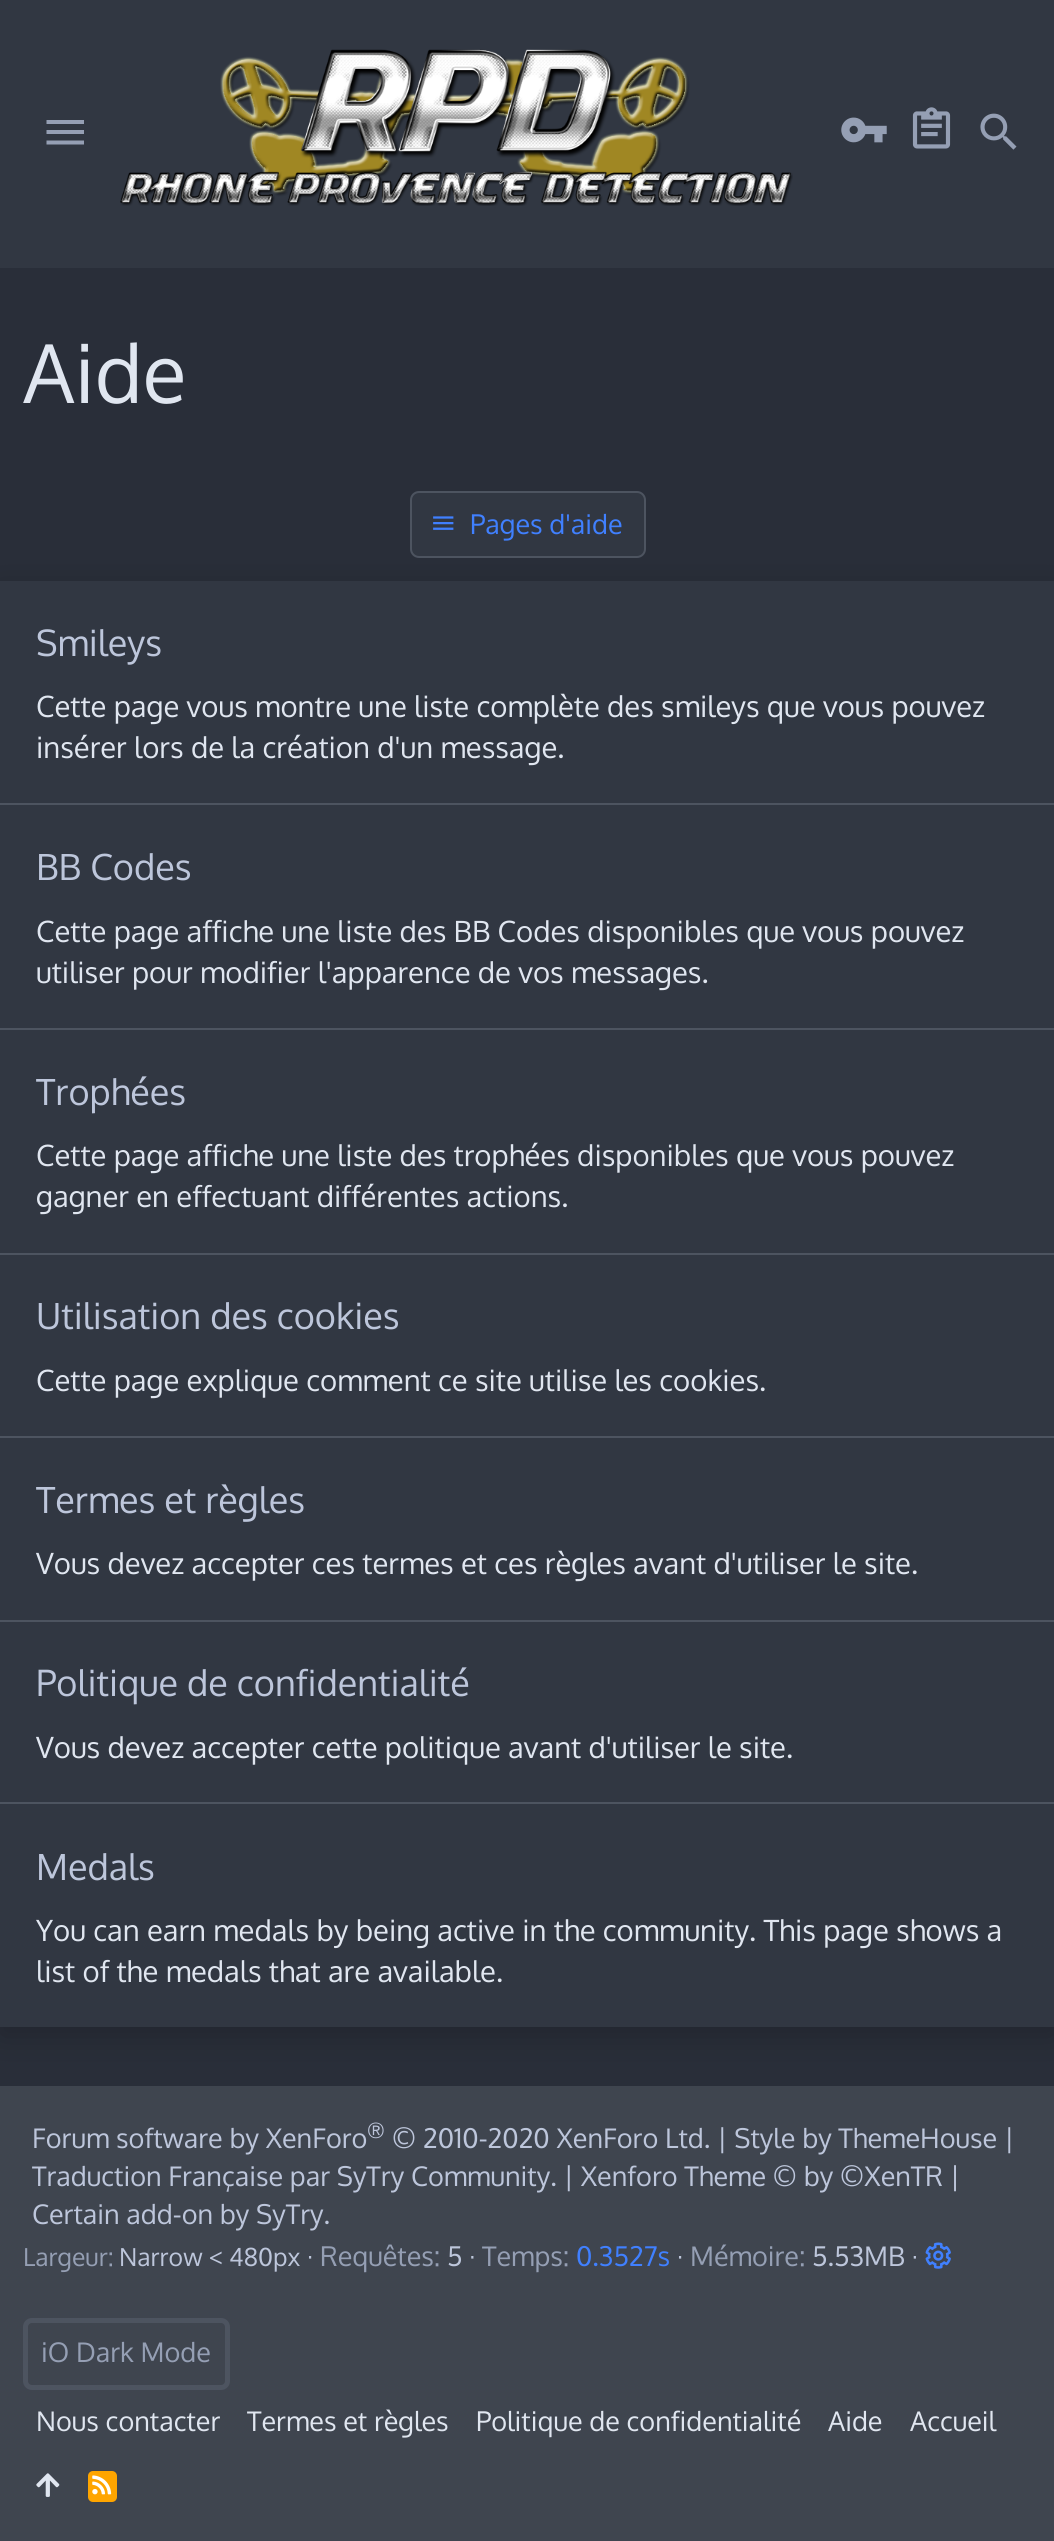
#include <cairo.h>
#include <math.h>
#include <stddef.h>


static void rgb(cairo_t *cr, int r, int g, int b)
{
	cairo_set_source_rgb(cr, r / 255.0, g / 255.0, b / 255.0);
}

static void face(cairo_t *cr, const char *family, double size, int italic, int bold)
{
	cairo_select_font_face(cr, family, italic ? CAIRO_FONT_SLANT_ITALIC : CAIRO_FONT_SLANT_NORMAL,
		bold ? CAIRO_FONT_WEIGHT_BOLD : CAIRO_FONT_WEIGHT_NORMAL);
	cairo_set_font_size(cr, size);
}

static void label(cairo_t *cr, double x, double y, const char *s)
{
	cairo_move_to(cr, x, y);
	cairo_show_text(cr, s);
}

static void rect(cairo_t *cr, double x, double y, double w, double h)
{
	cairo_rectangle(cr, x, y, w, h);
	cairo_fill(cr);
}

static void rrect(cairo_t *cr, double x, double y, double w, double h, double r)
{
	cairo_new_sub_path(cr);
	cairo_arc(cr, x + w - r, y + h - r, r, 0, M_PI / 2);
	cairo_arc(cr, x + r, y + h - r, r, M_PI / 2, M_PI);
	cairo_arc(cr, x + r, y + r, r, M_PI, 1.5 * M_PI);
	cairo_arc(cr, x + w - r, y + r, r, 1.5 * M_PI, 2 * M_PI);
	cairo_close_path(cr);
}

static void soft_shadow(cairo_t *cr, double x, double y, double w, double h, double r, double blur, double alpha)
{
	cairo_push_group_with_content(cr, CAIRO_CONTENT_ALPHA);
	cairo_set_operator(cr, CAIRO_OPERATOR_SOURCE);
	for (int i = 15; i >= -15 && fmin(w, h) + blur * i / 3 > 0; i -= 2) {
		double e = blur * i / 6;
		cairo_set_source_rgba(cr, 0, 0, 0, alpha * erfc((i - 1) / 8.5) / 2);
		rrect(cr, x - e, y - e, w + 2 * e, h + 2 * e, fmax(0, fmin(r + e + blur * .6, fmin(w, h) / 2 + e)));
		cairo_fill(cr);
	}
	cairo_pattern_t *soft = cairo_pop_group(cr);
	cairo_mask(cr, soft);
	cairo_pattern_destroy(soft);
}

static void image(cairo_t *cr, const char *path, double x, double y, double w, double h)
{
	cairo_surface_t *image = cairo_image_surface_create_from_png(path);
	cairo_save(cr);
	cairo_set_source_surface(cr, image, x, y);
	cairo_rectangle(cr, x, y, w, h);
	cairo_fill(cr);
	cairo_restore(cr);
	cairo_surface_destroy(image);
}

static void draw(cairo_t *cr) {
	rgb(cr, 41, 46, 57);
	cairo_paint(cr);
	rgb(cr, 49, 55, 66);
	rect(cr, 0, 0, 1054, 268);
	rgb(cr, 149, 159, 180);
	cairo_new_path(cr);
	cairo_move_to(cr, 46.5, 120);
	cairo_line_to(cr, 84, 120);
	cairo_line_to(cr, 84, 124);
	cairo_line_to(cr, 46.5, 124);
	cairo_close_path(cr);
	cairo_move_to(cr, 46.5, 130);
	cairo_line_to(cr, 84, 130);
	cairo_line_to(cr, 84, 134);
	cairo_line_to(cr, 46.5, 134);
	cairo_close_path(cr);
	cairo_move_to(cr, 46.5, 140.5);
	cairo_line_to(cr, 84, 140.5);
	cairo_line_to(cr, 84, 144.5);
	cairo_line_to(cr, 46.5, 144.5);
	cairo_close_path(cr);
	cairo_fill(cr);
	image(cr, "image0.png", 120, 49, 673, 157);
	image(cr, "image1.png", 841, 117, 46, 26);
	image(cr, "image2.png", 912, 107, 39, 42);
	image(cr, "image3.png", 980, 113, 37, 37);
	face(cr, "Oxygen", 81, 0, 0);
	rgb(cr, 224, 230, 240);
	label(cr, 23, 403, "Aide");
	rgb(cr, 63, 69, 79);
	rect(cr, 0, 2086, 1054, 455);
	rgb(cr, 0, 0, 0);
	soft_shadow(cr, 0, 590, 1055, 1446, 0, 17, 0.2);
	rgb(cr, 49, 55, 66);
	rrect(cr, 411, 492, 234, 65, 8);
	cairo_fill_preserve(cr);
	rgb(cr, 77, 84, 96);
	cairo_stroke(cr);
	image(cr, "image4.png", 433, 516, 21, 14);
	face(cr, "Oxygen", 27, 0, 0);
	rgb(cr, 64, 128, 255);
	label(cr, 470, 534, "Pages d'aide");
	rgb(cr, 49, 55, 66);
	rect(cr, 0, 581, 1054, 1446);
	face(cr, "Oxygen", 36, 0, 0);
	rgb(cr, 189, 198, 219);
	label(cr, 36, 656, "Smileys");
	face(cr, "Oxygen", 29.25, 0, 0);
	rgb(cr, 224, 230, 240);
	label(cr, 36, 717, "Cette page vous montre une liste complète des smileys que vous pouvez");
	label(cr, 36, 758, "insérer lors de la création d'un message.");
	rgb(cr, 77, 84, 96);
	rect(cr, 0, 803, 1054, 2);
	face(cr, "Oxygen", 36, 0, 0);
	rgb(cr, 189, 198, 219);
	label(cr, 36, 880, "BB Codes");
	face(cr, "Oxygen", 29.25, 0, 0);
	rgb(cr, 224, 230, 240);
	label(cr, 36, 942, "Cette page affiche une liste des BB Codes disponibles que vous pouvez");
	label(cr, 36, 983, "utiliser pour modifier l'apparence de vos messages.");
	rgb(cr, 77, 84, 96);
	rect(cr, 0, 1028, 1054, 2);
	face(cr, "Oxygen", 36, 0, 0);
	rgb(cr, 189, 198, 219);
	label(cr, 36, 1105, "Trophées");
	face(cr, "Oxygen", 29.25, 0, 0);
	rgb(cr, 224, 230, 240);
	label(cr, 36, 1166, "Cette page affiche une liste des trophées disponibles que vous pouvez");
	label(cr, 36, 1207, "gagner en effectuant différentes actions.");
	rgb(cr, 77, 84, 96);
	rect(cr, 0, 1253, 1054, 2);
	face(cr, "Oxygen", 36, 0, 0);
	rgb(cr, 189, 198, 219);
	label(cr, 36, 1329, "Utilisation des cookies");
	face(cr, "Oxygen", 29.25, 0, 0);
	rgb(cr, 224, 230, 240);
	label(cr, 36, 1391, "Cette page explique comment ce site utilise les cookies.");
	rgb(cr, 77, 84, 96);
	rect(cr, 0, 1436, 1054, 2);
	face(cr, "Oxygen", 36, 0, 0);
	rgb(cr, 189, 198, 219);
	label(cr, 36, 1513, "Termes et règles");
	face(cr, "Oxygen", 29.25, 0, 0);
	rgb(cr, 224, 230, 240);
	label(cr, 36, 1574, "Vous devez accepter ces termes et ces règles avant d'utiliser le site.");
	rgb(cr, 77, 84, 96);
	rect(cr, 0, 1620, 1054, 2);
	face(cr, "Oxygen", 36, 0, 0);
	rgb(cr, 189, 198, 219);
	label(cr, 36, 1696, "Politique de confidentialité");
	face(cr, "Oxygen", 29.25, 0, 0);
	rgb(cr, 224, 230, 240);
	label(cr, 36, 1758, "Vous devez accepter cette politique avant d'utiliser le site.");
	rgb(cr, 77, 84, 96);
	rect(cr, 0, 1802, 1054, 2);
	face(cr, "Oxygen", 36, 0, 0);
	rgb(cr, 189, 198, 219);
	label(cr, 36, 1880, "Medals");
	face(cr, "Oxygen", 29.25, 0, 0);
	rgb(cr, 224, 230, 240);
	label(cr, 36, 1941, "You can earn medals by being active in the community. This page shows a");
	label(cr, 36, 1982, "list of the medals that are available.");
	face(cr, "Oxygen", 27, 0, 0);
	rgb(cr, 189, 198, 219);
	label(cr, 32, 2148, "Forum software by XenForo");
	face(cr, "Oxygen", 20, 0, 0);
	label(cr, 367, 2138, "®");
	face(cr, "Oxygen", 27, 0, 0);
	label(cr, 392, 2148, "© 2010-2020 XenForo Ltd. | Style by ThemeHouse |");
	label(cr, 32, 2186, "Traduction Française par SyTry Community. | Xenforo Theme © by ©XenTR |");
	label(cr, 32, 2224, "Certain add-on by SyTry.");
	face(cr, "Oxygen", 24.75, 0, 0);
	rgb(cr, 149, 159, 180);
	label(cr, 23, 2266, "Largeur:");
	rgb(cr, 189, 198, 219);
	label(cr, 119, 2266, "Narrow < 480px");
	face(cr, "Oxygen", 27, 0, 0);
	label(cr, 307, 2266, "·");
	rgb(cr, 149, 159, 180);
	label(cr, 320, 2266, "Requêtes:");
	rgb(cr, 189, 198, 219);
	label(cr, 447, 2266, "5 ·");
	rgb(cr, 149, 159, 180);
	label(cr, 482, 2266, "Temps:");
	rgb(cr, 64, 128, 255);
	label(cr, 576, 2266, "0.3527s");
	rgb(cr, 189, 198, 219);
	label(cr, 677, 2266, "·");
	rgb(cr, 149, 159, 180);
	label(cr, 690, 2266, "Mémoire:");
	rgb(cr, 189, 198, 219);
	label(cr, 812, 2266, "5.53MB ·");
	image(cr, "image5.png", 925, 2242, 26, 27);
	rrect(cr, 25.5, 2320.5, 202, 67, 6.5);
	rgb(cr, 77, 84, 96);
	cairo_set_line_width(cr, 5);
	cairo_stroke(cr);
	rgb(cr, 149, 159, 180);
	label(cr, 41, 2362, "iO Dark Mode");
	rgb(cr, 224, 230, 240);
	label(cr, 36, 2431, "Nous contacter");
	label(cr, 247, 2431, "Termes et règles");
	label(cr, 476, 2431, "Politique de confidentialité");
	label(cr, 828, 2431, "Aide");
	label(cr, 910, 2431, "Accueil");
	image(cr, "image6.png", 36, 2473, 24, 24);
	rgb(cr, 255, 165, 0);
	rrect(cr, 88, 2471, 29, 31, 5);
	cairo_fill(cr);
	image(cr, "image7.png", 92, 2475, 20, 20);
}

int main(void) {
	cairo_surface_t *surface = cairo_image_surface_create(CAIRO_FORMAT_RGB24, 1054, 2541);
	cairo_t *cr = cairo_create(surface);
	cairo_font_options_t *options = cairo_font_options_create();
	cairo_font_options_set_hint_metrics(options, CAIRO_HINT_METRICS_OFF);
	cairo_font_options_set_hint_style(options, CAIRO_HINT_STYLE_NONE);
	cairo_set_font_options(cr, options);
	cairo_set_miter_limit(cr, 4);
	draw(cr);
	cairo_surface_write_to_png(surface, "render.png");
	cairo_font_options_destroy(options);
	cairo_destroy(cr);
	cairo_surface_destroy(surface);
	return 0;
}
